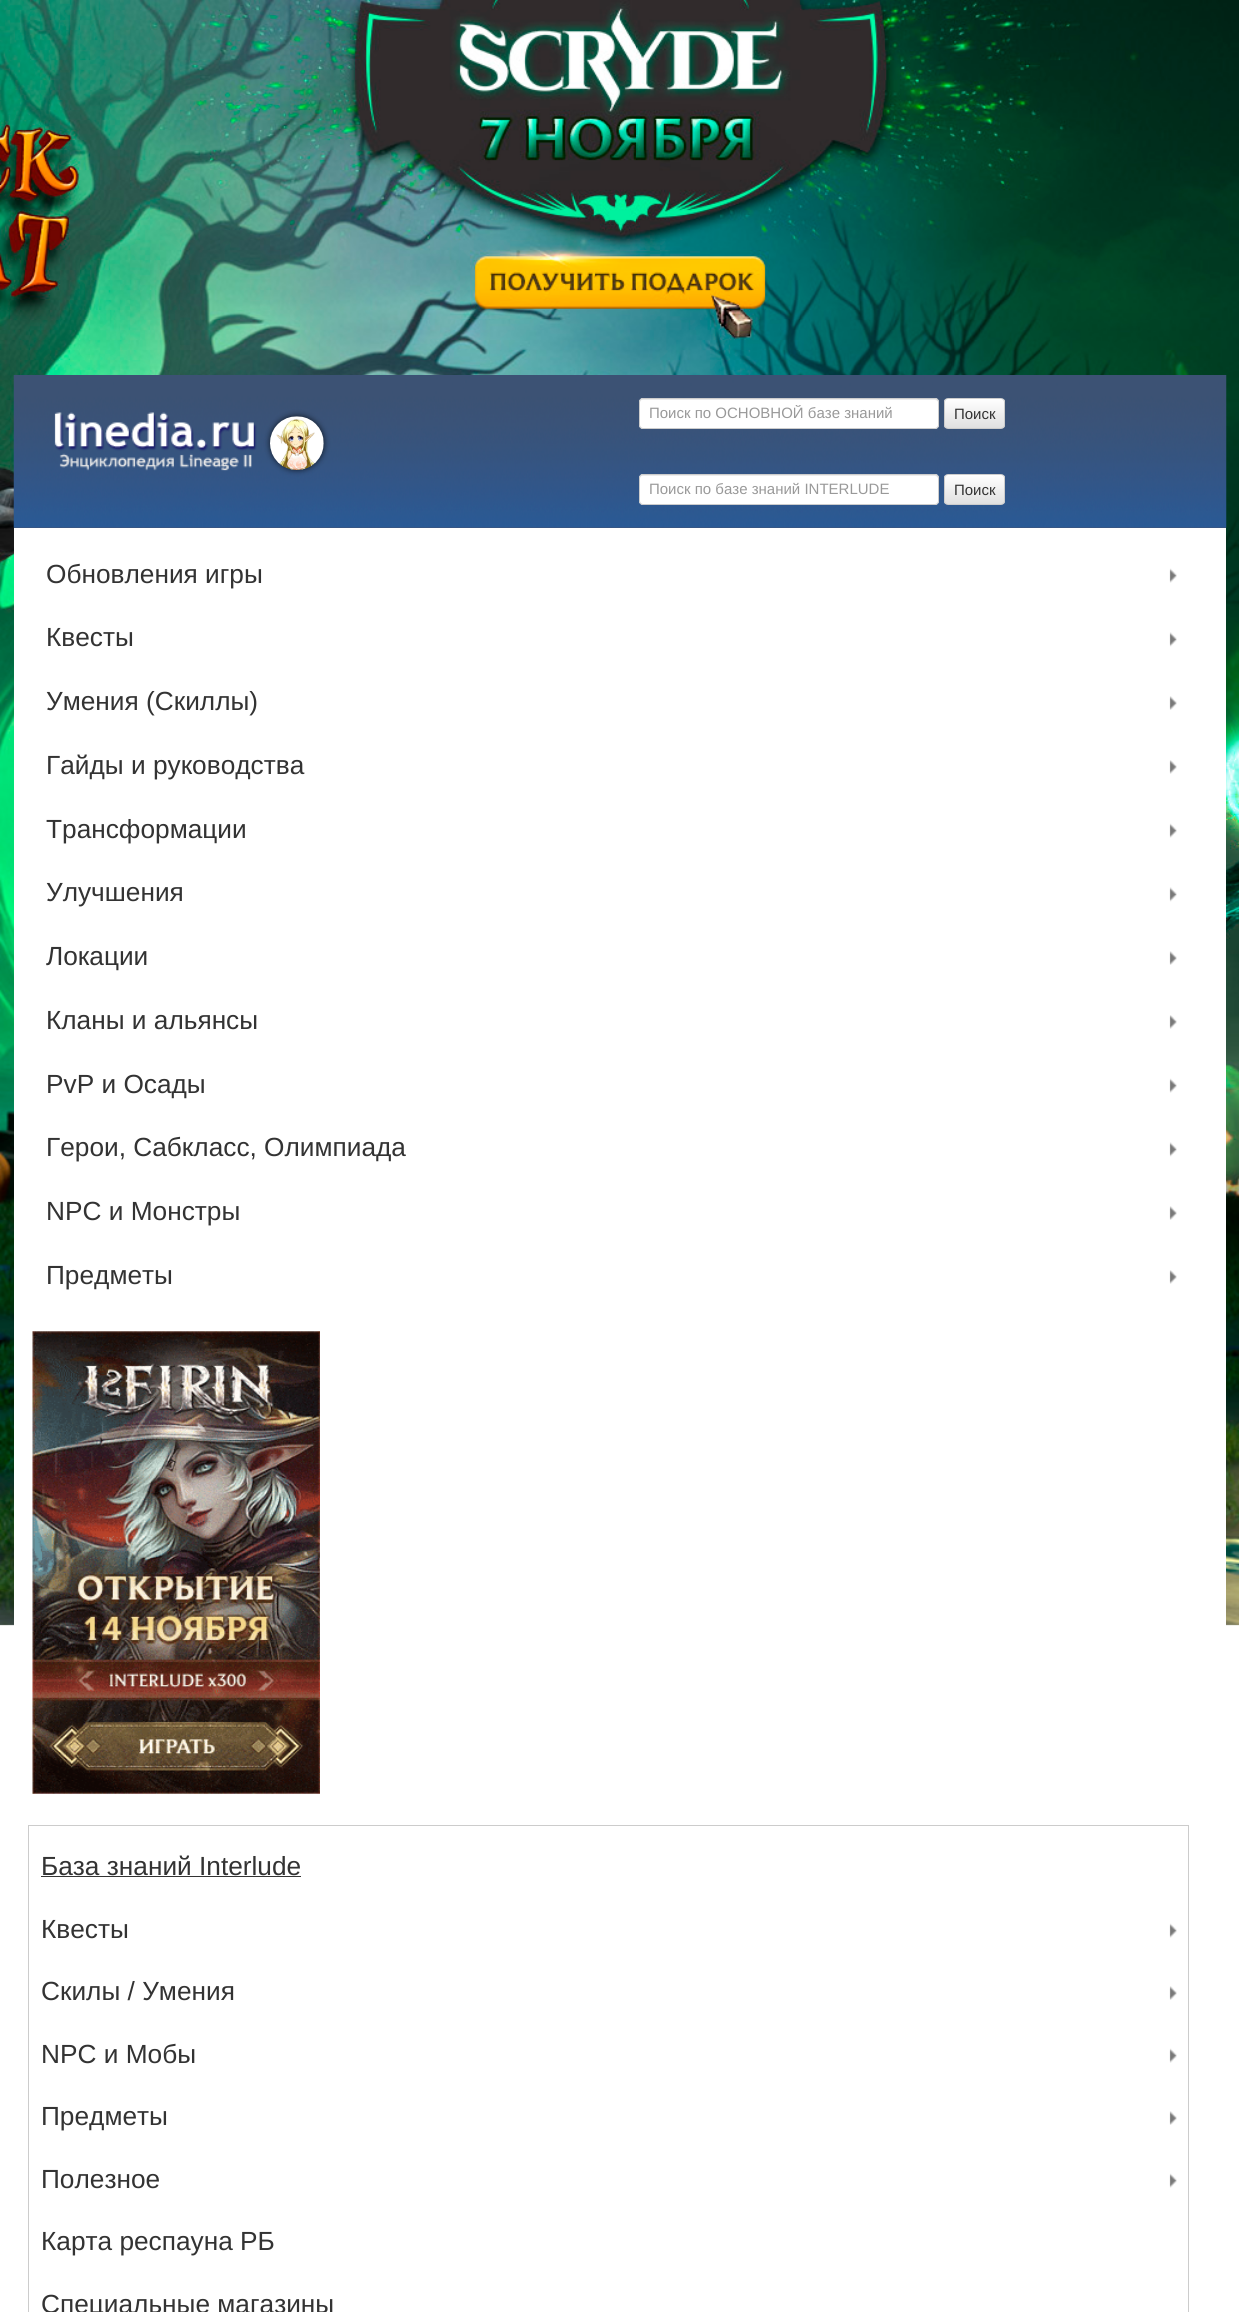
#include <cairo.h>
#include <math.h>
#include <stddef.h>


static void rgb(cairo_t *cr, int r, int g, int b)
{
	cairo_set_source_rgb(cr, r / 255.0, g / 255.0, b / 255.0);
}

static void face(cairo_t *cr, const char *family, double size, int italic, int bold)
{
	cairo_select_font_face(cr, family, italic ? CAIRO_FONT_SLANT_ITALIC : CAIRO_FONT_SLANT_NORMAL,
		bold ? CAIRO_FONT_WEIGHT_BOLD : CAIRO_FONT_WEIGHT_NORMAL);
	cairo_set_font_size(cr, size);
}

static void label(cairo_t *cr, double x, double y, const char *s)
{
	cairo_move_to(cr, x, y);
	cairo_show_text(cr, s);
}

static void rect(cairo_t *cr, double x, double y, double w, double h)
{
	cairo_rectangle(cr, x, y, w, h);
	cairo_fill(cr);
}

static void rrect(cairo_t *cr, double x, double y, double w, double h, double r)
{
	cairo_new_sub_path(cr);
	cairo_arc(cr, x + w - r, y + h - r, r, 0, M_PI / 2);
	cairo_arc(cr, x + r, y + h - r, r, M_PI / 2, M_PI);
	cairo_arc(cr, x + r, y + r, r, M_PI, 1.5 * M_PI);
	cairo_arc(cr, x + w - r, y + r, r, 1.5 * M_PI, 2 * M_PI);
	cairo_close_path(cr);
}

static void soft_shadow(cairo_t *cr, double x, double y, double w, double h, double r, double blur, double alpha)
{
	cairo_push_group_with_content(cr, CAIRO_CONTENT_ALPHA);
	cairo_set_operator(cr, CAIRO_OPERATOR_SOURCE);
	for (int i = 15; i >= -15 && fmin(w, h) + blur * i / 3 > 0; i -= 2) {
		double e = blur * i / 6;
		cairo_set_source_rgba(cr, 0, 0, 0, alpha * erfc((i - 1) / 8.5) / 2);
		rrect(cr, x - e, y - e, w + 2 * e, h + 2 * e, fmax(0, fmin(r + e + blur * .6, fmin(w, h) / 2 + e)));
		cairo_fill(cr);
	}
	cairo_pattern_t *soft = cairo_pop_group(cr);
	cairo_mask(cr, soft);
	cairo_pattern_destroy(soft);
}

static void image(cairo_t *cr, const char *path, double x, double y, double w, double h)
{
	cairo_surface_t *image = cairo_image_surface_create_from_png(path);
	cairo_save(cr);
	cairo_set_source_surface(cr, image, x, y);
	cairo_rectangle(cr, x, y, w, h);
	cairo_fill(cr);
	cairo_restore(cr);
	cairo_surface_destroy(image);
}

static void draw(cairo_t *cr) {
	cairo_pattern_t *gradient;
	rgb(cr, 255, 255, 255);
	cairo_paint(cr);
	image(cr, "image0.png", 0, 0, 1239, 1626);
	rgb(cr, 69, 83, 114);
	rect(cr, 14, 527, 1212, 1);
	image(cr, "image1.png", 13, 375, 1214, 153);
	image(cr, "image2.png", 54, 412, 203, 59);
	rgb(cr, 0, 0, 0);
	soft_shadow(cr, 270, 416, 54, 54, 27, 3, 0.7);
	image(cr, "image3.png", 270, 416, 54, 54);
	rgb(cr, 255, 255, 255);
	rrect(cr, 639, 398, 300, 31, 4);
	cairo_fill(cr);
	rgb(cr, 236, 236, 236);
	cairo_new_path(cr);
	cairo_move_to(cr, 642, 400);
	cairo_line_to(cr, 935, 400);
	cairo_curve_to(cr, 936, 400, 938, 401, 938, 402);
	cairo_curve_to(cr, 938, 400, 937, 399, 936, 399);
	cairo_line_to(cr, 642, 399);
	cairo_line_to(cr, 640, 401);
	cairo_line_to(cr, 640, 402);
	cairo_curve_to(cr, 640, 401, 641, 400, 642, 400);
	cairo_close_path(cr);
	cairo_fill(cr);
	rrect(cr, 639.5, 398.5, 299, 30, 3.5);
	rgb(cr, 204, 204, 204);
	cairo_set_line_width(cr, 1);
	cairo_stroke(cr);
	cairo_save(cr);
	cairo_rectangle(cr, 649, 405, 280, 18);
	cairo_clip(cr);
	face(cr, "Liberation Sans", 15, 0, 0);
	rgb(cr, 153, 153, 153);
	label(cr, 649, 418, "Поиск по ОСНОВНОЙ базе знаний");
	cairo_restore(cr);
	cairo_save(cr);
	rrect(cr, 944, 398, 61, 31, 4);
	cairo_clip(cr);
	gradient = cairo_pattern_create_linear(974, 399, 974, 428);
	cairo_pattern_add_color_stop_rgba(gradient, 0, 1, 1, 1, 1);
	cairo_pattern_add_color_stop_rgba(gradient, 1, 0.878, 0.878, 0.878, 1);
	cairo_set_source(cr, gradient);
	cairo_pattern_destroy(gradient);
	rect(cr, 944, 399, 61, 29);
	cairo_restore(cr);
	rrect(cr, 944.5, 398.5, 60, 30, 3.5);
	cairo_stroke(cr);
	face(cr, "Liberation Sans", 15, 0, 0);
	rgb(cr, 51, 51, 51);
	label(cr, 954, 419, "Поиск");
	rgb(cr, 255, 255, 255);
	rrect(cr, 639, 474, 300, 31, 4);
	cairo_fill(cr);
	rgb(cr, 236, 236, 236);
	cairo_new_path(cr);
	cairo_move_to(cr, 642, 476);
	cairo_line_to(cr, 935, 476);
	cairo_curve_to(cr, 936, 476, 938, 477, 938, 479);
	cairo_curve_to(cr, 938, 477, 938, 475, 936, 475);
	cairo_line_to(cr, 642, 475);
	cairo_curve_to(cr, 640, 475, 640, 477, 640, 479);
	cairo_curve_to(cr, 640, 477, 641, 476, 642, 476);
	cairo_close_path(cr);
	cairo_fill(cr);
	rrect(cr, 639.5, 474.5, 299, 30, 3.5);
	rgb(cr, 204, 204, 204);
	cairo_stroke(cr);
	rgb(cr, 153, 153, 153);
	label(cr, 649, 494, "Поиск по базе знаний INTERLUDE");
	cairo_save(cr);
	rrect(cr, 944, 474, 61, 31, 4);
	cairo_clip(cr);
	gradient = cairo_pattern_create_linear(974, 475, 974, 504);
	cairo_pattern_add_color_stop_rgba(gradient, 0, 1, 1, 1, 1);
	cairo_pattern_add_color_stop_rgba(gradient, 1, 0.878, 0.878, 0.878, 1);
	cairo_set_source(cr, gradient);
	cairo_pattern_destroy(gradient);
	rect(cr, 944, 475, 61, 29);
	cairo_restore(cr);
	rrect(cr, 944.5, 474.5, 60, 30, 3.5);
	rgb(cr, 204, 204, 204);
	cairo_stroke(cr);
	rgb(cr, 51, 51, 51);
	label(cr, 954, 495, "Поиск");
	rgb(cr, 255, 255, 255);
	rect(cr, 14, 528, 1212, 1098);
	face(cr, "Liberation Sans", 26.25, 0, 0);
	rgb(cr, 51, 51, 51);
	label(cr, 46, 583, "Обновления игры");
	image(cr, "image4.png", 1169, 568, 8, 15);
	label(cr, 46, 646, "Квесты");
	image(cr, "image5.png", 1169, 632, 8, 15);
	label(cr, 46, 710, "Умения (Скиллы)");
	image(cr, "image6.png", 1169, 696, 8, 14);
	label(cr, 46, 774, "Гайды и руководства");
	image(cr, "image7.png", 1169, 760, 8, 14);
	label(cr, 46, 838, "Трансформации");
	image(cr, "image4.png", 1169, 823, 8, 15);
	label(cr, 46, 901, "Улучшения");
	image(cr, "image5.png", 1169, 887, 8, 15);
	label(cr, 46, 965, "Локации");
	image(cr, "image6.png", 1169, 951, 8, 14);
	label(cr, 46, 1029, "Кланы и альянсы");
	image(cr, "image7.png", 1169, 1015, 8, 14);
	label(cr, 46, 1093, "PvP и Осады");
	image(cr, "image4.png", 1169, 1078, 8, 15);
	label(cr, 46, 1156, "Герои, Сабкласс, Олимпиада");
	image(cr, "image5.png", 1169, 1142, 8, 15);
	label(cr, 46, 1220, "NPC и Монстры");
	image(cr, "image6.png", 1169, 1206, 8, 14);
	label(cr, 46, 1284, "Предметы");
	image(cr, "image7.png", 1169, 1270, 8, 14);
	image(cr, "image8.png", 32, 1331, 288, 463);
	cairo_rectangle(cr, 28.5, 1825.5, 1160, 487);
	rgb(cr, 204, 204, 204);
	cairo_stroke(cr);
	rgb(cr, 51, 51, 51);
	label(cr, 41, 1875, "База знаний Interlude");
	rect(cr, 41, 1876, 260, 1);
	label(cr, 41, 1938, "Квесты");
	image(cr, "image4.png", 1169, 1923, 8, 15);
	label(cr, 41, 2000, "Скилы / Умения");
	image(cr, "image6.png", 1169, 1986, 8, 14);
	label(cr, 41, 2063, "NPC и Мобы");
	image(cr, "image9.png", 1169, 2048, 8, 15);
	label(cr, 41, 2125, "Предметы");
	image(cr, "image6.png", 1169, 2111, 8, 14);
	label(cr, 41, 2188, "Полезное");
	image(cr, "image4.png", 1169, 2173, 8, 15);
	label(cr, 41, 2250, "Карта респауна РБ");
	label(cr, 41, 2313, "Специальные магазины");
}

int main(void) {
	cairo_surface_t *surface = cairo_image_surface_create(CAIRO_FORMAT_RGB24, 1239, 2312);
	cairo_t *cr = cairo_create(surface);
	cairo_font_options_t *options = cairo_font_options_create();
	cairo_font_options_set_hint_metrics(options, CAIRO_HINT_METRICS_OFF);
	cairo_font_options_set_hint_style(options, CAIRO_HINT_STYLE_NONE);
	cairo_set_font_options(cr, options);
	cairo_set_miter_limit(cr, 4);
	draw(cr);
	cairo_surface_write_to_png(surface, "render.png");
	cairo_font_options_destroy(options);
	cairo_destroy(cr);
	cairo_surface_destroy(surface);
	return 0;
}
